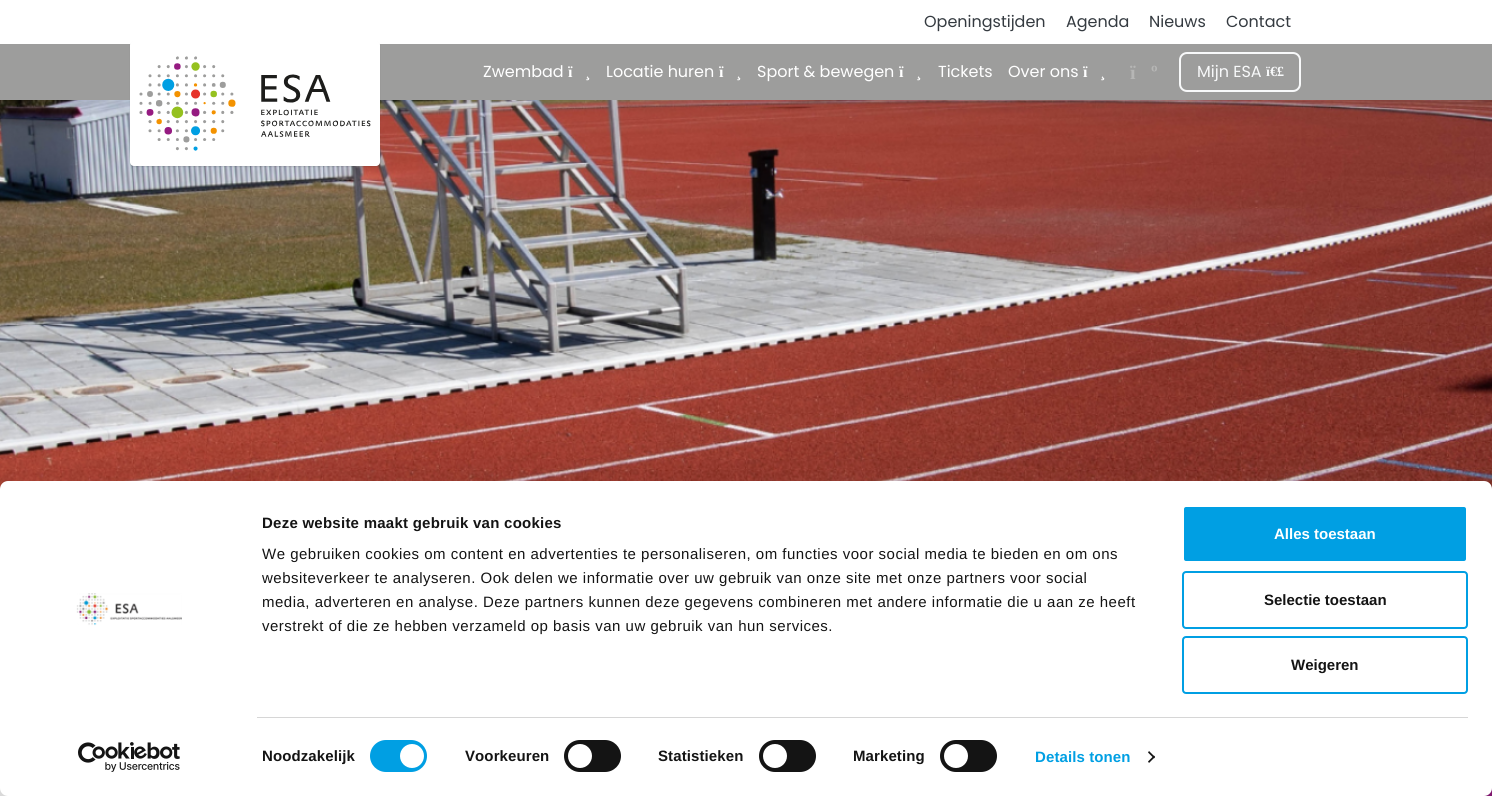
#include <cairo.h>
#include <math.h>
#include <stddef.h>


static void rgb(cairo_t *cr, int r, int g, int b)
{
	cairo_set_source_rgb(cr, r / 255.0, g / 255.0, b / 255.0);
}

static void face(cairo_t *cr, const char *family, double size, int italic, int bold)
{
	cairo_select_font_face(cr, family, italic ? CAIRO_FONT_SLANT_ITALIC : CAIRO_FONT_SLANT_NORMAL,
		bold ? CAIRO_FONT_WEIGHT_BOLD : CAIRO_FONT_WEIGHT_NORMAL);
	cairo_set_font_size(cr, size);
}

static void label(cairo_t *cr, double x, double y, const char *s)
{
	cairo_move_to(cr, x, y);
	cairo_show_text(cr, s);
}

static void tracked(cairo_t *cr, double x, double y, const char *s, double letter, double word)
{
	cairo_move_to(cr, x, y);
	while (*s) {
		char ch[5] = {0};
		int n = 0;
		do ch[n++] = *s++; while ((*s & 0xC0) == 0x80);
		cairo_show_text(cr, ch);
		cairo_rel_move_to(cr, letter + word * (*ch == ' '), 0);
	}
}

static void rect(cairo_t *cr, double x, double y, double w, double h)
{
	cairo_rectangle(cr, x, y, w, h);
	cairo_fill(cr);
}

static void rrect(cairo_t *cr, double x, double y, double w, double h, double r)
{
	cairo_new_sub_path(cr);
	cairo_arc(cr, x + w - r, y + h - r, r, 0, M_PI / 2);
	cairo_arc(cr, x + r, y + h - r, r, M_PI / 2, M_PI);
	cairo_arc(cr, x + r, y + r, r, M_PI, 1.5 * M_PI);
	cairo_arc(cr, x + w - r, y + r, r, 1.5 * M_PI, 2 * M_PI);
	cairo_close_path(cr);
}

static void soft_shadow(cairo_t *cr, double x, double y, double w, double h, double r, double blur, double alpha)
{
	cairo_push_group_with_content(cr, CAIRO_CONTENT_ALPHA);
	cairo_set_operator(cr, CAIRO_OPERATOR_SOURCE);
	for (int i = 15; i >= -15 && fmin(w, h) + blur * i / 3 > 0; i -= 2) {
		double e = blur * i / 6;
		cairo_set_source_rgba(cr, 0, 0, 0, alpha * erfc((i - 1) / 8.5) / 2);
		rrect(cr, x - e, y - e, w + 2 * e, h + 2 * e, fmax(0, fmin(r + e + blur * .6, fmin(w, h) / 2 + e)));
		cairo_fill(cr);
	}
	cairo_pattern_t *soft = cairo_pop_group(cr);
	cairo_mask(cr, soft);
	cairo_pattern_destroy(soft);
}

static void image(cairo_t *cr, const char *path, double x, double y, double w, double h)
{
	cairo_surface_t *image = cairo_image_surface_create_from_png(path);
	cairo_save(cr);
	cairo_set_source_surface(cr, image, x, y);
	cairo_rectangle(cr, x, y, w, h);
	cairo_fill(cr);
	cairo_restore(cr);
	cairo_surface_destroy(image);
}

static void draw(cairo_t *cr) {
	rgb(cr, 255, 255, 255);
	cairo_paint(cr);
	face(cr, "Poppins", 16, 0, 0);
	rgb(cr, 52, 58, 64);
	label(cr, 924, 27, "Openingstijden");
	label(cr, 1066, 27, "Agenda");
	label(cr, 1149, 27, "Nieuws");
	label(cr, 1226, 27, "Contact");
	rgb(cr, 157, 157, 156);
	rect(cr, 0, 44, 1492, 56);
	image(cr, "image1.png", 0, 100, 1492, 389);
	rgb(cr, 50, 50, 50);
	soft_shadow(cr, 130, 42, 250, 125, 4, 0.5, 0.14);
	rgb(cr, 255, 255, 255);
	rrect(cr, 130, 41, 250, 125, 4);
	cairo_fill(cr);
	image(cr, "image0.png", 139, 56, 232, 95);
	label(cr, 483, 77, "Zwembad");
	face(cr, "Liberation Serif", 16, 0, 1);
	label(cr, 568, 77, "ï");
	label(cr, 585, 77, "¸");
	face(cr, "Poppins", 16, 0, 0);
	label(cr, 606, 77, "Locatie huren");
	face(cr, "Liberation Serif", 16, 0, 1);
	label(cr, 719, 77, "ï");
	label(cr, 736, 77, "¸");
	face(cr, "Poppins", 16, 0, 0);
	label(cr, 757, 77, "Sport & bewegen");
	face(cr, "Liberation Serif", 16, 0, 1);
	label(cr, 899, 77, "ï");
	label(cr, 916, 77, "¸");
	face(cr, "Poppins", 16, 0, 0);
	label(cr, 938, 77, "Tickets");
	label(cr, 1008, 77, "Over ons");
	face(cr, "Liberation Serif", 16, 0, 1);
	label(cr, 1083, 77, "ï");
	label(cr, 1100, 77, "¸");
	face(cr, "Liberation Serif", 20, 0, 1);
	rgb(cr, 182, 182, 181);
	label(cr, 1130, 79, "ï");
	label(cr, 1151, 79, "º");
	rrect(cr, 1180, 53, 120, 38, 7);
	rgb(cr, 248, 249, 250);
	cairo_stroke(cr);
	face(cr, "Poppins", 16, 0, 0);
	label(cr, 1197, 77, "Mijn ESA");
	face(cr, "Liberation Serif", 14, 0, 1);
	label(cr, 1266, 76, "ï€£");
	rgb(cr, 149, 27, 129);
	rect(cr, 1484, 788, 8, 8);
	rgb(cr, 0, 0, 0);
	soft_shadow(cr, 0, 511, 1492, 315, 8, 35, 0.3);
	rgb(cr, 255, 255, 255);
	rrect(cr, 0, 481, 1492, 315, 8);
	cairo_fill(cr);
	image(cr, "image2.png", 76, 593, 106, 33);
	image(cr, "image3.png", 78, 742, 102, 30);
	face(cr, "Liberation Sans", 15, 0, 1);
	rgb(cr, 20, 20, 20);
	tracked(cr, 262, 528, "Deze website maakt gebruik van cookies", 0.25, 0);
	face(cr, "Liberation Sans", 15, 0, 0);
	tracked(cr, 262, 559, "We gebruiken cookies om content en advertenties te personaliseren, om functies voor social media te bieden en om ons", 0.5, 0);
	tracked(cr, 262, 583, "websiteverkeer te analyseren. Ook delen we informatie over uw gebruik van onze site met onze partners voor social", 0.5, 0);
	tracked(cr, 262, 607, "media, adverteren en analyse. Deze partners kunnen deze gegevens combineren met andere informatie die u aan ze heeft", 0.5, 0);
	tracked(cr, 262, 631, "verstrekt of die ze hebben verzameld op basis van uw gebruik van hun services.", 0.5, 0);
	rgb(cr, 214, 214, 214);
	rect(cr, 257, 717, 1211, 1);
	face(cr, "Liberation Sans", 15, 0, 1);
	rgb(cr, 20, 20, 20);
	tracked(cr, 262, 761, "Noodzakelijk", 0.1, 0);
	rgb(cr, 0, 159, 227);
	rrect(cr, 370, 740, 57, 32, 16);
	cairo_fill(cr);
	rgb(cr, 255, 255, 255);
	cairo_arc(cr, 412, 756, 12, 0, 2 * M_PI);
	cairo_fill(cr);
	rgb(cr, 20, 20, 20);
	tracked(cr, 465, 761, "Voorkeuren", 0.1, 0);
	rrect(cr, 564, 740, 57, 32, 16);
	cairo_fill(cr);
	rgb(cr, 255, 255, 255);
	cairo_arc(cr, 580, 756, 12, 0, 2 * M_PI);
	cairo_fill(cr);
	rgb(cr, 20, 20, 20);
	tracked(cr, 658, 761, "Statistieken", 0.1, 0);
	rrect(cr, 759, 740, 57, 32, 16);
	cairo_fill(cr);
	rgb(cr, 255, 255, 255);
	cairo_arc(cr, 775, 756, 12, 0, 2 * M_PI);
	cairo_fill(cr);
	rgb(cr, 20, 20, 20);
	tracked(cr, 853, 761, "Marketing", 0.1, 0);
	rrect(cr, 940, 740, 57, 32, 16);
	cairo_fill(cr);
	rgb(cr, 255, 255, 255);
	cairo_arc(cr, 956, 756, 12, 0, 2 * M_PI);
	cairo_fill(cr);
	rgb(cr, 0, 159, 227);
	tracked(cr, 1035, 762, "Details tonen", 0.1, 0);
	rgb(cr, 20, 20, 20);
	cairo_new_path(cr);
	cairo_move_to(cr, 1149, 751);
	cairo_line_to(cr, 1155, 757);
	cairo_line_to(cr, 1154, 758.5);
	cairo_line_to(cr, 1148, 752.5);
	cairo_close_path(cr);
	cairo_fill(cr);
	cairo_new_path(cr);
	cairo_move_to(cr, 1154, 755.5);
	cairo_line_to(cr, 1155, 757);
	cairo_line_to(cr, 1149, 763);
	cairo_line_to(cr, 1148, 761.5);
	cairo_close_path(cr);
	cairo_fill(cr);
	rgb(cr, 0, 159, 227);
	rrect(cr, 1183, 506, 284, 56, 3);
	cairo_fill_preserve(cr);
	rgb(cr, 255, 255, 255);
	cairo_stroke(cr);
	label(cr, 1274, 539, "Alles toestaan");
	rrect(cr, 1183, 572, 284, 56, 3);
	rgb(cr, 0, 159, 227);
	cairo_stroke(cr);
	rgb(cr, 20, 20, 20);
	label(cr, 1264, 605, "Selectie toestaan");
	rrect(cr, 1183, 637, 284, 56, 3);
	rgb(cr, 0, 159, 227);
	cairo_stroke(cr);
	rgb(cr, 20, 20, 20);
	label(cr, 1291, 670, "Weigeren");
}

int main(void) {
	cairo_surface_t *surface = cairo_image_surface_create(CAIRO_FORMAT_RGB24, 1492, 796);
	cairo_t *cr = cairo_create(surface);
	cairo_font_options_t *options = cairo_font_options_create();
	cairo_font_options_set_hint_metrics(options, CAIRO_HINT_METRICS_OFF);
	cairo_font_options_set_hint_style(options, CAIRO_HINT_STYLE_NONE);
	cairo_set_font_options(cr, options);
	cairo_set_miter_limit(cr, 4);
	draw(cr);
	cairo_surface_write_to_png(surface, "render.png");
	cairo_font_options_destroy(options);
	cairo_destroy(cr);
	cairo_surface_destroy(surface);
	return 0;
}
